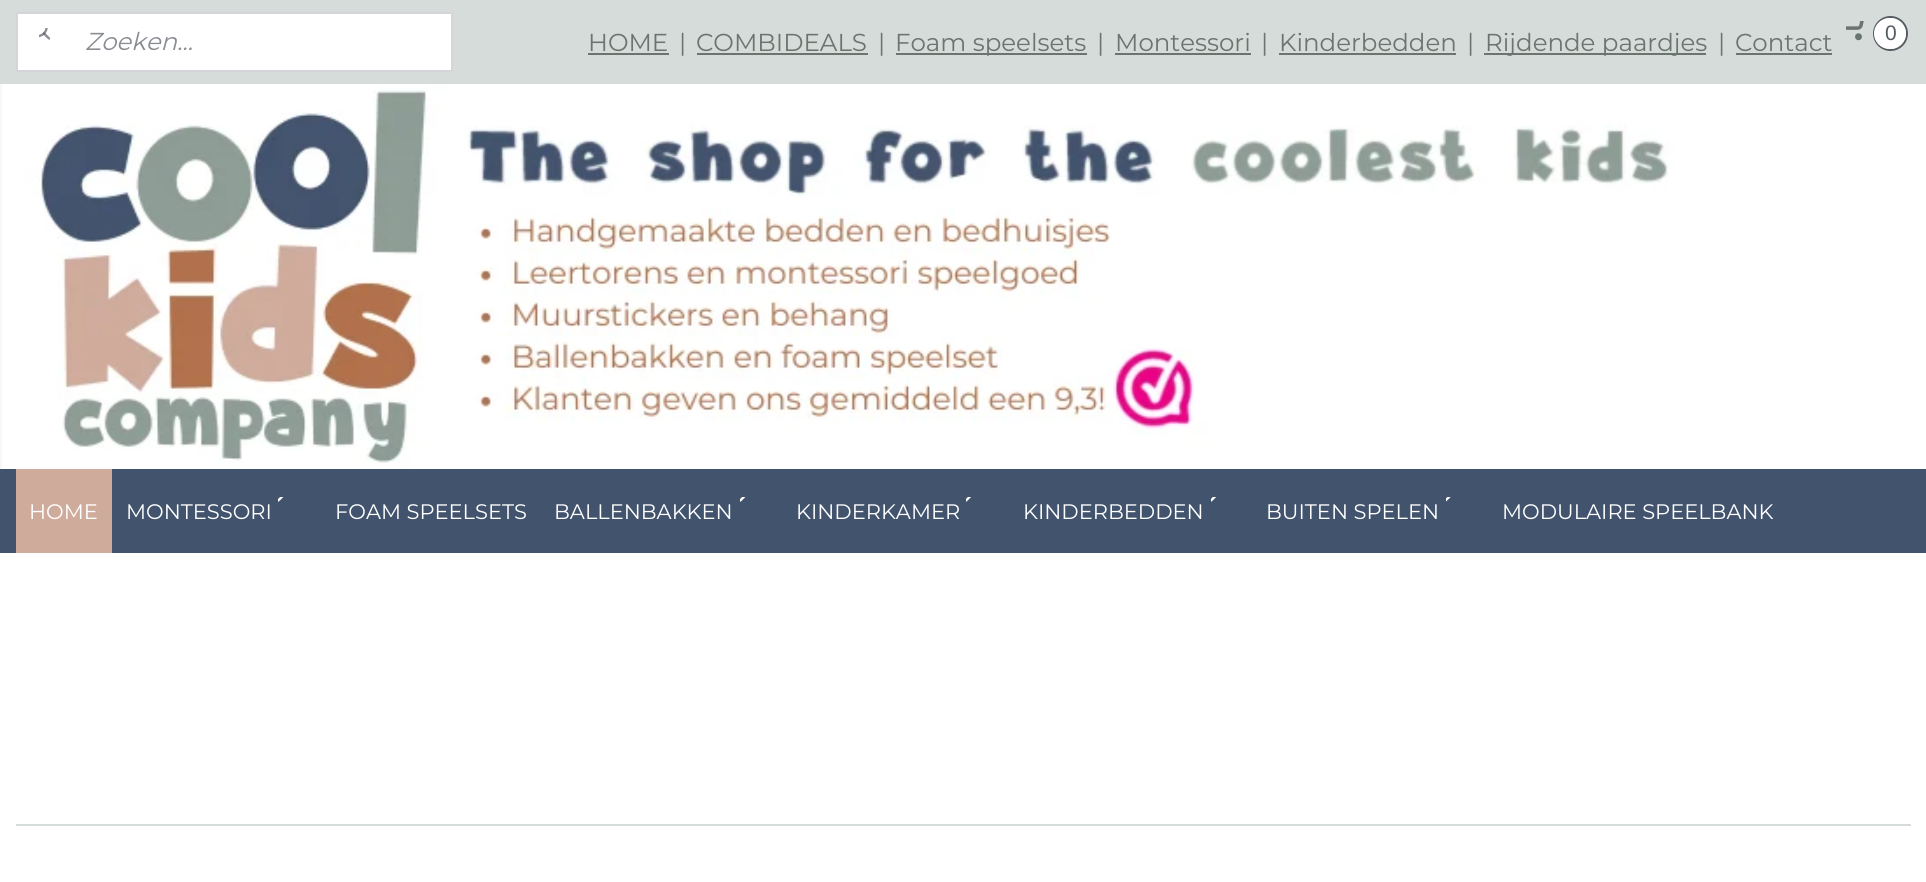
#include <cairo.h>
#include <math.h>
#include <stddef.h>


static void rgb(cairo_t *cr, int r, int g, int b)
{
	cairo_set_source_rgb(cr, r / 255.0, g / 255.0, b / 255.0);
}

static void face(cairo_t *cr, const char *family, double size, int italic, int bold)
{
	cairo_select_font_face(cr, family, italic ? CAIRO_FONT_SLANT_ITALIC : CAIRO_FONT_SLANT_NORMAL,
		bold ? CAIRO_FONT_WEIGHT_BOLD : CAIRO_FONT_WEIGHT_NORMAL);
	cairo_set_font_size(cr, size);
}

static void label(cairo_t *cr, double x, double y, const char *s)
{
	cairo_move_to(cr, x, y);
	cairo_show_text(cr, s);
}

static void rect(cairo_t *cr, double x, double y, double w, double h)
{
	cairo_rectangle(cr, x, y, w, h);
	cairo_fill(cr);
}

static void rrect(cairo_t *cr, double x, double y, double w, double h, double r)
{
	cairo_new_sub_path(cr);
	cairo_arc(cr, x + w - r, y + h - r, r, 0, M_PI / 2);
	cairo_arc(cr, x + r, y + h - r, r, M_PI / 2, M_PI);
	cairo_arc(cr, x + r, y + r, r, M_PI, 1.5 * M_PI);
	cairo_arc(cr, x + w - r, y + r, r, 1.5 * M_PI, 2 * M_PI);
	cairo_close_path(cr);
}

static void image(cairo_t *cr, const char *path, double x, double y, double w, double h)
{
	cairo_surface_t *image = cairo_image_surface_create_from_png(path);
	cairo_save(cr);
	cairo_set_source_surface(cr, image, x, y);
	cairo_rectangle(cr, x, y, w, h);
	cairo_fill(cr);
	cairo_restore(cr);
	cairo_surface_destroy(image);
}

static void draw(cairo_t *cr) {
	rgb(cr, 255, 255, 255);
	cairo_paint(cr);
	rgb(cr, 248, 248, 248);
	rect(cr, 0, 84, 2, 385);
	rgb(cr, 214, 220, 217);
	rect(cr, 0, 0, 1926, 84);
	rgb(cr, 255, 255, 255);
	cairo_rectangle(cr, 17, 13, 435, 58);
	cairo_fill_preserve(cr);
	rgb(cr, 211, 213, 217);
	cairo_stroke(cr);
	image(cr, "image0.png", 39, 28, 12, 12);
	face(cr, "Montserrat", 24.5, 1, 0);
	rgb(cr, 137, 140, 145);
	label(cr, 85, 50, "Zoeken...");
	face(cr, "Montserrat", 24.5, 0, 0);
	rgb(cr, 106, 117, 112);
	label(cr, 588, 51, "HOME");
	rect(cr, 588, 53, 81, 2);
	label(cr, 679, 51, "|");
	label(cr, 696, 51, "COMBIDEALS");
	rect(cr, 697, 53, 171, 2);
	label(cr, 878, 51, "|");
	rect(cr, 896, 53, 191, 2);
	label(cr, 895, 51, "Foam speelsets");
	label(cr, 1097, 51, "|");
	label(cr, 1115, 51, "Montessori");
	rect(cr, 1115, 53, 136, 2);
	label(cr, 1261, 51, "|");
	label(cr, 1279, 51, "Kinderbedden");
	rect(cr, 1279, 53, 177, 2);
	label(cr, 1467, 51, "|");
	rect(cr, 1484, 53, 222, 2);
	label(cr, 1485, 51, "Rijdende paardjes");
	label(cr, 1718, 51, "|");
	label(cr, 1735, 51, "Contact");
	rect(cr, 1736, 53, 96, 2);
	image(cr, "image1.png", 1846, 21, 18, 20);
	cairo_arc(cr, 1890.5, 33.5, 16.5, 0, 2 * M_PI);
	rgb(cr, 87, 91, 98);
	cairo_stroke(cr);
	rgb(cr, 255, 255, 255);
	rrect(cr, 1874, 18, 32, 31, 15.5);
	cairo_fill(cr);
	face(cr, "Liberation Sans", 21, 0, 0);
	rgb(cr, 87, 91, 98);
	label(cr, 1885, 40, "0");
	image(cr, "image2.png", 2, 84, 1924, 385);
	rgb(cr, 66, 83, 109);
	rect(cr, 0, 469, 1926, 84);
	rgb(cr, 207, 171, 155);
	rect(cr, 16, 469, 96, 84);
	face(cr, "Montserrat", 21, 0, 0);
	rgb(cr, 255, 255, 255);
	label(cr, 29, 519, "HOME");
	image(cr, "image3.png", 278, 497, 6, 5);
	label(cr, 126, 519, "MONTESSORI");
	label(cr, 335, 519, "FOAM SPEELSETS");
	image(cr, "image3.png", 740, 497, 6, 5);
	label(cr, 554, 519, "BALLENBAKKEN");
	image(cr, "image4.png", 966, 497, 5, 5);
	label(cr, 796, 519, "KINDERKAMER");
	image(cr, "image4.png", 1211, 497, 5, 5);
	label(cr, 1023, 519, "KINDERBEDDEN");
	image(cr, "image5.png", 1446, 497, 5, 5);
	label(cr, 1266, 519, "BUITEN SPELEN");
	label(cr, 1502, 519, "MODULAIRE SPEELBANK");
	rgb(cr, 214, 220, 217);
	rect(cr, 16, 824, 1895, 2);
}

int main(void) {
	cairo_surface_t *surface = cairo_image_surface_create(CAIRO_FORMAT_RGB24, 1926, 882);
	cairo_t *cr = cairo_create(surface);
	cairo_font_options_t *options = cairo_font_options_create();
	cairo_font_options_set_hint_metrics(options, CAIRO_HINT_METRICS_OFF);
	cairo_font_options_set_hint_style(options, CAIRO_HINT_STYLE_NONE);
	cairo_set_font_options(cr, options);
	cairo_set_miter_limit(cr, 4);
	draw(cr);
	cairo_surface_write_to_png(surface, "render.png");
	cairo_font_options_destroy(options);
	cairo_destroy(cr);
	cairo_surface_destroy(surface);
	return 0;
}
